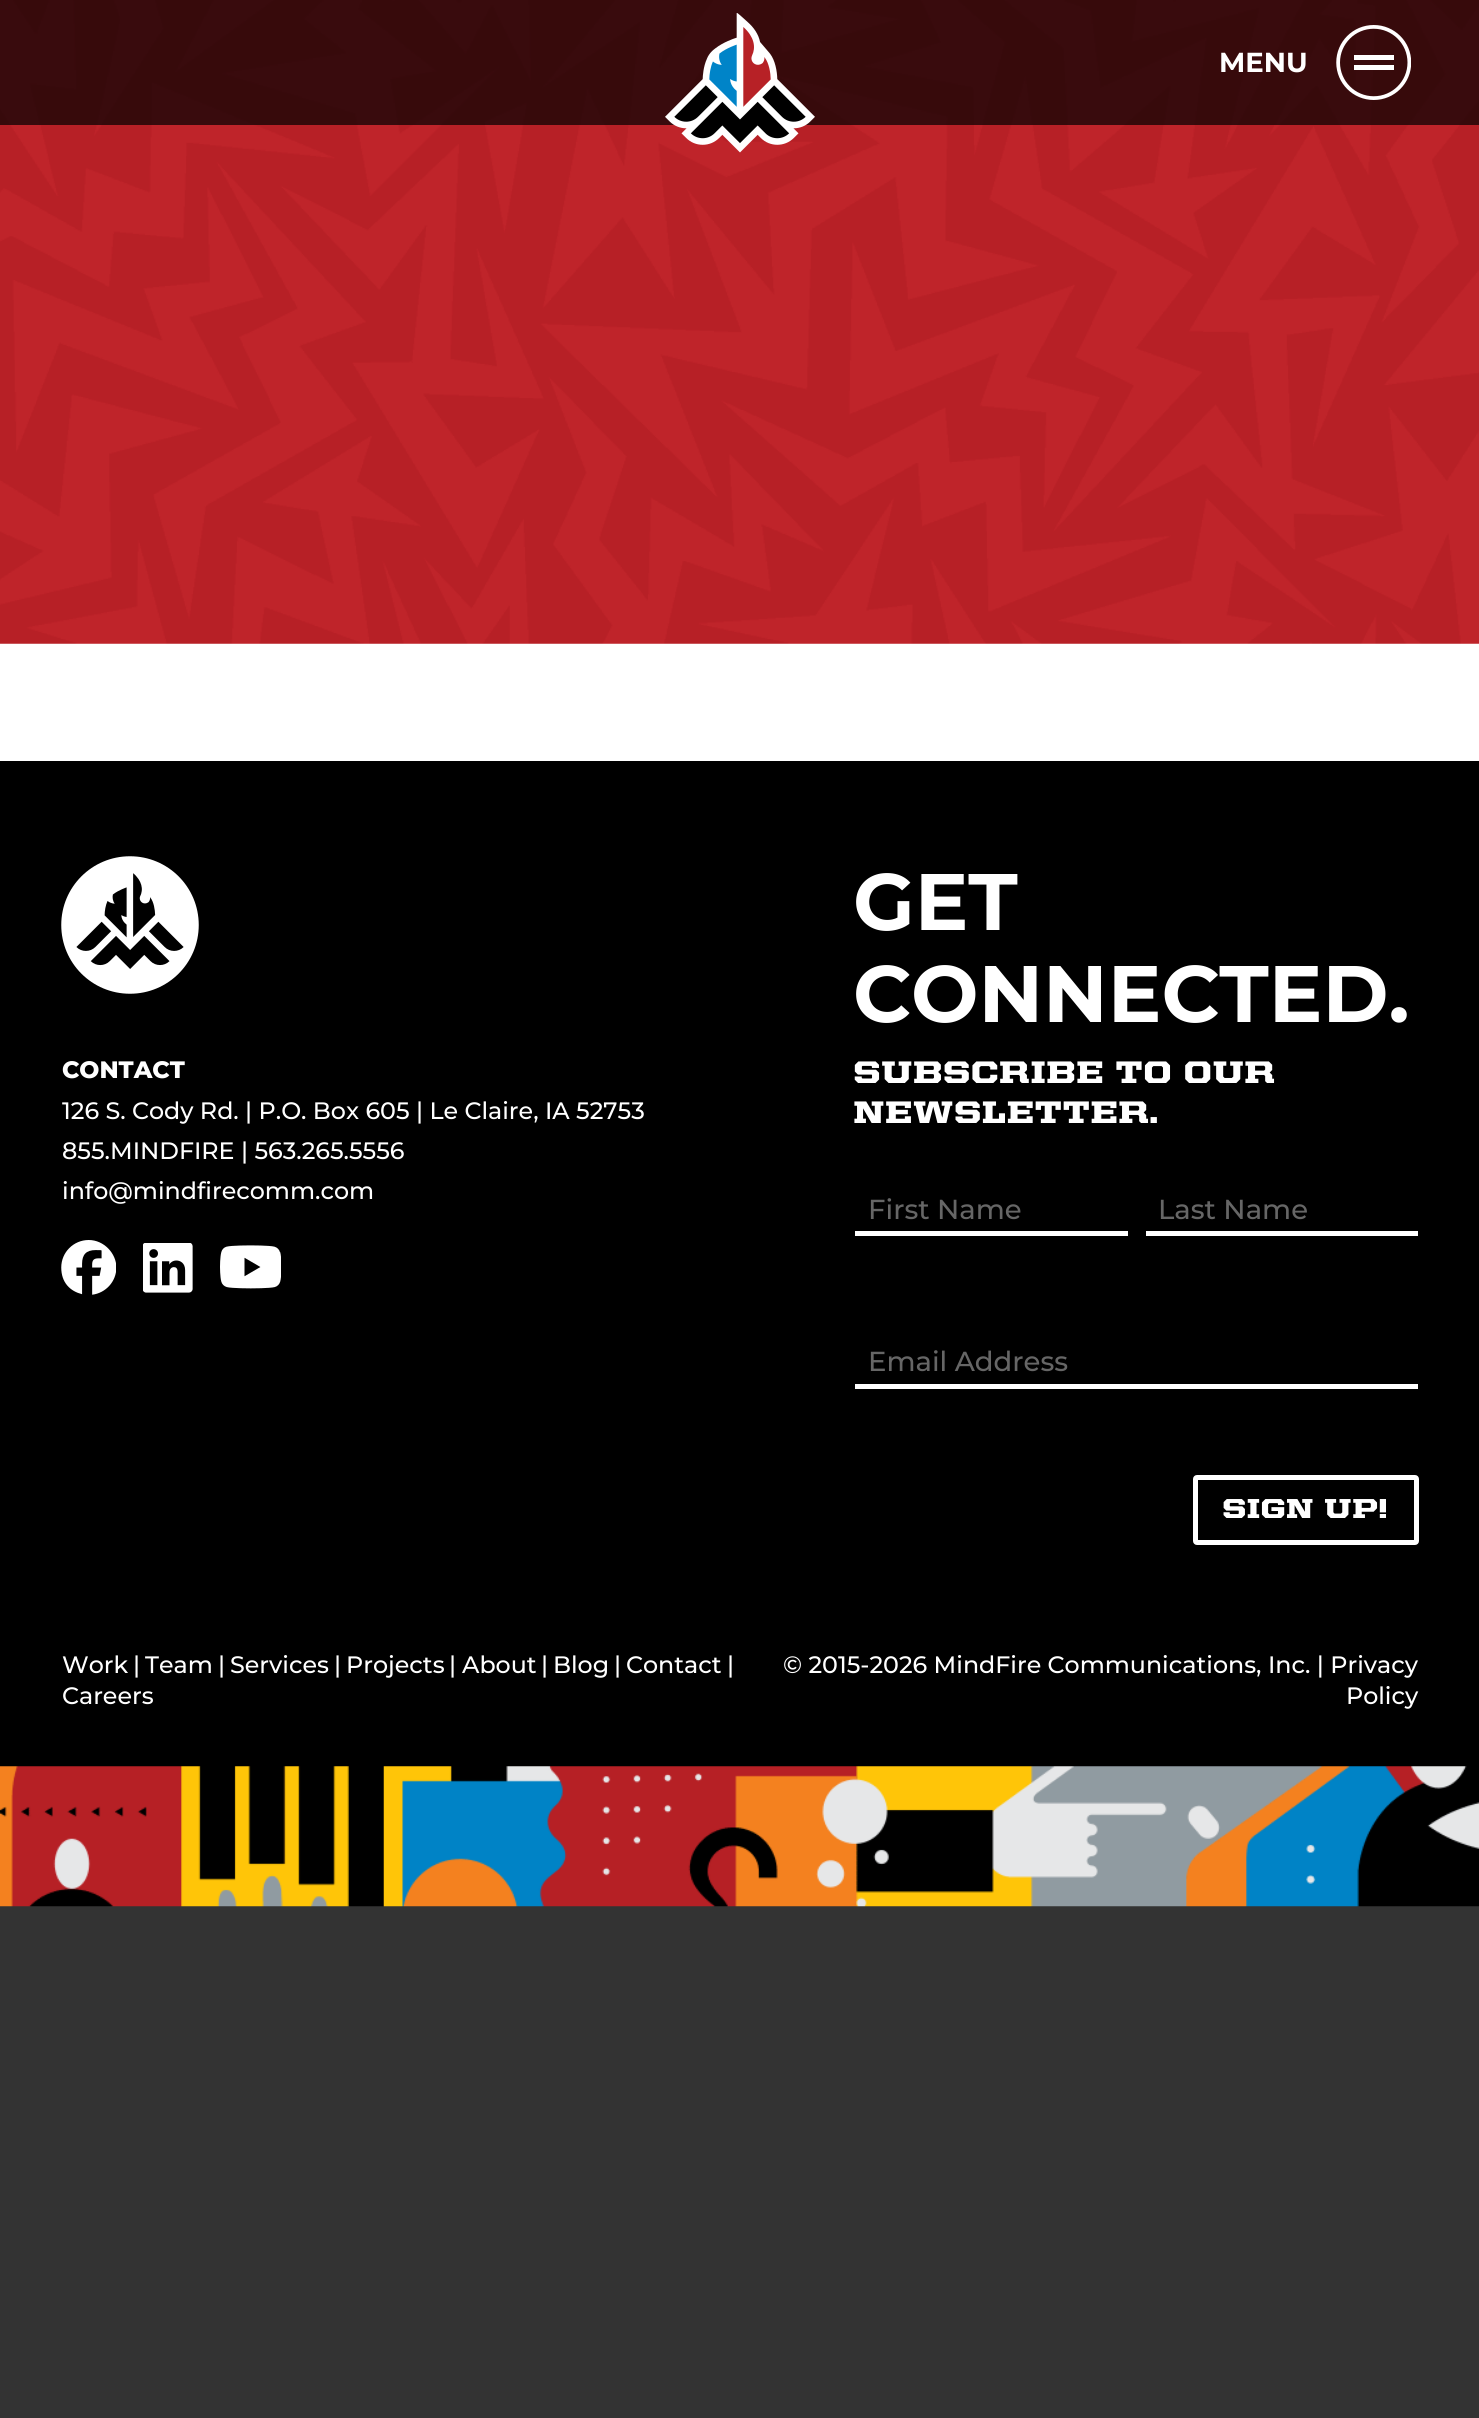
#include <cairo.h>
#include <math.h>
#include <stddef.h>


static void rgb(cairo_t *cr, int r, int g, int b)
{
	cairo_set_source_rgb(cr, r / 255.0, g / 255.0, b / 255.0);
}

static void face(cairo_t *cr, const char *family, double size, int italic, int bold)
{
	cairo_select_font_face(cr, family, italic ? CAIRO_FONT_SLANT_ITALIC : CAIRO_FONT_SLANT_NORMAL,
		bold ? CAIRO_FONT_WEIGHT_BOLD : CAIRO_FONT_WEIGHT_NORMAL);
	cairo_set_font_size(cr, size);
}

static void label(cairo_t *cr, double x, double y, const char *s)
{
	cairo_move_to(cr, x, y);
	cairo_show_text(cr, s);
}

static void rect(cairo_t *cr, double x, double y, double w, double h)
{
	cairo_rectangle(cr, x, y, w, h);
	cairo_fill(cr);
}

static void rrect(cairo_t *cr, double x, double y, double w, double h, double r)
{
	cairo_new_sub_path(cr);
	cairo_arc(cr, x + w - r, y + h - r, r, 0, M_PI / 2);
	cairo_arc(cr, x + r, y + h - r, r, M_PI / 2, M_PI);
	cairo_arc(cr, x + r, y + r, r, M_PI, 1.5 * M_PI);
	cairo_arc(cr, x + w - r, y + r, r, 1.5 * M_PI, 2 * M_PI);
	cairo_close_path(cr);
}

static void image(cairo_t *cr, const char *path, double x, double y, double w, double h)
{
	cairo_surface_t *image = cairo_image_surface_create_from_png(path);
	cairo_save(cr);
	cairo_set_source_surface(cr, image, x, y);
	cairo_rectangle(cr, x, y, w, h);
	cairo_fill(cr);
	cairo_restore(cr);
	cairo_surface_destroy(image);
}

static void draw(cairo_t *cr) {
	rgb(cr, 51, 51, 51);
	cairo_paint(cr);
	rgb(cr, 255, 255, 255);
	rect(cr, 0, 643, 1479, 118);
	image(cr, "image0.png", 0, 0, 1479, 644);
	cairo_set_source_rgba(cr, 0, 0, 0, 0.7);
	rect(cr, 0, 0, 1479, 125);
	image(cr, "image1.png", 665, 13, 150, 140);
	face(cr, "Montserrat", 27.5, 0, 1);
	rgb(cr, 255, 255, 255);
	label(cr, 1219, 72, "MENU");
	image(cr, "image2.png", 1336, 25, 75, 75);
	rgb(cr, 0, 0, 0);
	rect(cr, 0, 761, 1479, 1006);
	image(cr, "image3.png", 61, 856, 138, 138);
	face(cr, "Montserrat ExtraBold", 23.75, 0, 0);
	rgb(cr, 255, 255, 255);
	label(cr, 62, 1078, "CONTACT");
	face(cr, "Montserrat Medium", 23.75, 0, 0);
	label(cr, 62, 1119, "126 S. Cody Rd. | P.O. Box 605 | Le Claire, IA 52753");
	label(cr, 62, 1159, "855.MINDFIRE | 563.265.5556");
	label(cr, 62, 1199, "info@mindfirecomm.com");
	image(cr, "image4.png", 61, 1240, 55, 55);
	image(cr, "image5.png", 143, 1243, 50, 50);
	image(cr, "image6.png", 220, 1245, 61, 44);
	face(cr, "Montserrat", 80, 0, 1);
	label(cr, 853, 930, "GET");
	label(cr, 853, 1022, "CONNECTED.");
	face(cr, "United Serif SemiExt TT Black", 31.25, 0, 0);
	label(cr, 853, 1083, "SUBSCRIBE TO OUR");
	label(cr, 853, 1123, "NEWSLETTER.");
	rect(cr, 855, 1231, 273, 5);
	face(cr, "Montserrat Medium", 27.5, 0, 0);
	rgb(cr, 102, 102, 102);
	label(cr, 868, 1219, "First Name");
	rgb(cr, 255, 255, 255);
	rect(cr, 1146, 1231, 272, 5);
	rgb(cr, 102, 102, 102);
	label(cr, 1158, 1219, "Last Name");
	rgb(cr, 255, 255, 255);
	rect(cr, 855, 1384, 563, 5);
	rgb(cr, 102, 102, 102);
	label(cr, 868, 1371, "Email Address");
	rrect(cr, 1195.5, 1477.5, 221, 65, 1.5);
	rgb(cr, 255, 255, 255);
	cairo_set_line_width(cr, 5);
	cairo_stroke(cr);
	face(cr, "United Serif SemiExt TT Black", 27.5, 0, 0);
	label(cr, 1222, 1518, "SIGN UP!");
	face(cr, "Montserrat Medium", 23.75, 0, 0);
	label(cr, 62, 1673, "Work");
	label(cr, 133, 1673, "|");
	label(cr, 145, 1673, "Team");
	label(cr, 218, 1673, "|");
	label(cr, 230, 1673, "Services");
	label(cr, 334, 1673, "|");
	label(cr, 346, 1673, "Projects");
	label(cr, 449, 1673, "|");
	label(cr, 462, 1673, "About");
	label(cr, 541, 1673, "|");
	label(cr, 553, 1673, "Blog");
	label(cr, 614, 1673, "|");
	label(cr, 626, 1673, "Contact");
	label(cr, 727, 1673, "|");
	label(cr, 62, 1704, "Careers");
	label(cr, 783, 1673, "© 2015-2026 MindFire Communications, Inc. | Privacy");
	label(cr, 1346, 1704, "Policy");
	image(cr, "image7.png", 0, 1766, 1479, 141);
}

int main(void) {
	cairo_surface_t *surface = cairo_image_surface_create(CAIRO_FORMAT_RGB24, 1479, 2418);
	cairo_t *cr = cairo_create(surface);
	cairo_font_options_t *options = cairo_font_options_create();
	cairo_font_options_set_hint_metrics(options, CAIRO_HINT_METRICS_OFF);
	cairo_font_options_set_hint_style(options, CAIRO_HINT_STYLE_NONE);
	cairo_set_font_options(cr, options);
	cairo_set_miter_limit(cr, 4);
	draw(cr);
	cairo_surface_write_to_png(surface, "render.png");
	cairo_font_options_destroy(options);
	cairo_destroy(cr);
	cairo_surface_destroy(surface);
	return 0;
}
